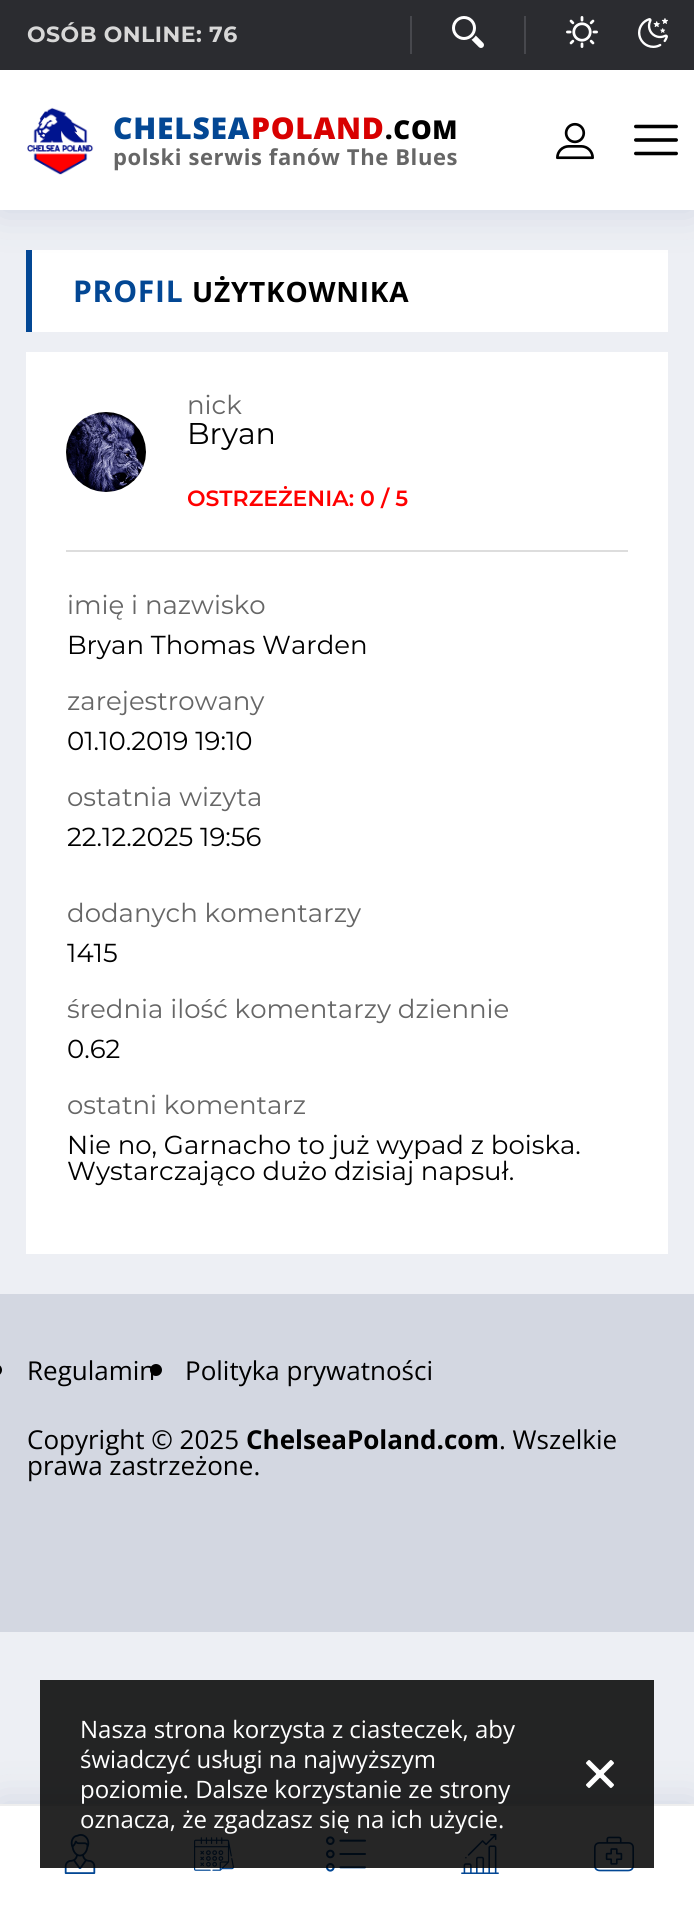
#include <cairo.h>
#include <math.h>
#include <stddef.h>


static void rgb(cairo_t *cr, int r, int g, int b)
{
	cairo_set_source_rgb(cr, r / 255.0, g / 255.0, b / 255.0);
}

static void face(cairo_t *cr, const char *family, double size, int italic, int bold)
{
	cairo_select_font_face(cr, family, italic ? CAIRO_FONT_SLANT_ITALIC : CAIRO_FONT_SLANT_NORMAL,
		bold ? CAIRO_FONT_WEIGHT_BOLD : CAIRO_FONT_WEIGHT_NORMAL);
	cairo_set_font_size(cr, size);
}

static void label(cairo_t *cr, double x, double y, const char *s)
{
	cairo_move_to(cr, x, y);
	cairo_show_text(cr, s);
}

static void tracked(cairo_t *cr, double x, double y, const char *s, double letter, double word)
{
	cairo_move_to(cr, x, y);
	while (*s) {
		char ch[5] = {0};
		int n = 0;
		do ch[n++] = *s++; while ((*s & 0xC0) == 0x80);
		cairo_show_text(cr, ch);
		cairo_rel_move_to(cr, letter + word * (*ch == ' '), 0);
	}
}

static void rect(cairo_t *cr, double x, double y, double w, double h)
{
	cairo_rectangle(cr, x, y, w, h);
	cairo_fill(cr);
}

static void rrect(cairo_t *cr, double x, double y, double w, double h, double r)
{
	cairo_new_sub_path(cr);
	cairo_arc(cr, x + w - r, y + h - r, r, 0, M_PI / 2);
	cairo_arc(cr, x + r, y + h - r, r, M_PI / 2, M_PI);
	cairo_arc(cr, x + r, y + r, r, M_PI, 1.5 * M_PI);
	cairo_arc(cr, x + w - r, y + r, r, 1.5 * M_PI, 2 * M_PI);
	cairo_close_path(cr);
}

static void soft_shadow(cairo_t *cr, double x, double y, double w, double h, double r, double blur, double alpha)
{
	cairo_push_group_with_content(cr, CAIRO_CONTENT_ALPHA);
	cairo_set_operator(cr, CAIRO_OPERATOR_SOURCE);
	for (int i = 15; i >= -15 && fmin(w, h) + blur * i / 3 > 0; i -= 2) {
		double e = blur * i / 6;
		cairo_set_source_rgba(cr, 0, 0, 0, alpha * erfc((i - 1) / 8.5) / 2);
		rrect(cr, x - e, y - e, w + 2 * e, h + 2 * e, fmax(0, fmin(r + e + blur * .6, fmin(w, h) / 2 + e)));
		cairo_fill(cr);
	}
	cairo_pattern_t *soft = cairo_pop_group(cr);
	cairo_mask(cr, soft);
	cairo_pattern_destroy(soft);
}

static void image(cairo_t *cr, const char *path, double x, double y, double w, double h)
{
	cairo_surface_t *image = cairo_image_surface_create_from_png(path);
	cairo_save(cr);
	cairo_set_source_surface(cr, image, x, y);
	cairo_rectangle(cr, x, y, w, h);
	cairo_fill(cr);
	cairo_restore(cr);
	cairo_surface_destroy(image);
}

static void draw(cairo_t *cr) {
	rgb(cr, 237, 239, 244);
	cairo_paint(cr);
	rgb(cr, 255, 255, 255);
	rect(cr, 32, 250, 636, 82);
	rgb(cr, 3, 71, 148);
	rect(cr, 26, 250, 6, 82);
	rgb(cr, 151, 162, 191);
	soft_shadow(cr, 0, 70, 694, 140, 0, 20, 0.35);
	rgb(cr, 43, 44, 48);
	rect(cr, 0, 0, 694, 70);
	face(cr, "Montserrat", 22, 0, 1);
	rgb(cr, 216, 216, 216);
	tracked(cr, 27, 42, "OSÓB ONLINE: 76", 0.5, 0);
	rgb(cr, 71, 72, 77);
	rect(cr, 410, 16, 2, 38);
	image(cr, "image0.png", 452, 16, 32, 32);
	rect(cr, 524, 16, 2, 38);
	image(cr, "image1.png", 566, 16, 32, 32);
	image(cr, "image2.png", 638, 18, 30, 30);
	rgb(cr, 255, 255, 255);
	rect(cr, 0, 70, 694, 140);
	image(cr, "image3.png", 27, 107, 67, 68);
	face(cr, "Open Sans ExtraBold", 30, 0, 0);
	rgb(cr, 3, 71, 148);
	tracked(cr, 113, 139, "CHELSEA", 0.75, 0);
	rgb(cr, 216, 0, 0);
	tracked(cr, 251, 139, "POLAND", 0.75, 0);
	face(cr, "Open Sans ExtraBold", 26, 0, 0);
	rgb(cr, 0, 0, 0);
	tracked(cr, 385, 139, ".COM", 0.75, 0);
	face(cr, "Open Sans", 22, 0, 1);
	rgb(cr, 102, 102, 102);
	tracked(cr, 113, 165, "polski serwis fanów The Blues", 0.6, 0);
	image(cr, "image4.png", 556, 122, 38, 38);
	image(cr, "image5.png", 634, 124, 44, 32);
	face(cr, "Open Sans", 30, 0, 1);
	rgb(cr, 3, 71, 148);
	tracked(cr, 73, 302, "PROFIL", 0.75, 0);
	face(cr, "Open Sans", 28, 0, 1);
	rgb(cr, 0, 0, 0);
	tracked(cr, 192, 302, "UŻYTKOWNIKA", 0.75, 0);
	rgb(cr, 255, 255, 255);
	rect(cr, 26, 352, 642, 902);
	rgb(cr, 221, 221, 221);
	rect(cr, 66, 550, 562, 2);
	cairo_new_path(cr);
	cairo_arc(cr, 106, 452, 40, 0, 2 * M_PI);
	cairo_fill(cr);
	image(cr, "image6.png", 66, 412, 80, 80);
	face(cr, "Montserrat", 26, 0, 0);
	rgb(cr, 102, 102, 102);
	label(cr, 187, 414, "nick");
	face(cr, "Montserrat", 30, 0, 0);
	rgb(cr, 0, 0, 0);
	label(cr, 187, 444, "Bryan");
	face(cr, "Montserrat SemiBold", 22, 0, 0);
	rgb(cr, 255, 0, 0);
	label(cr, 187, 506, "OSTRZEŻENIA: 0 / 5");
	face(cr, "Montserrat", 26, 0, 0);
	rgb(cr, 102, 102, 102);
	label(cr, 67, 614, "imię i nazwisko");
	rgb(cr, 0, 0, 0);
	label(cr, 67, 654, "Bryan Thomas Warden");
	rgb(cr, 102, 102, 102);
	label(cr, 67, 710, "zarejestrowany");
	rgb(cr, 0, 0, 0);
	label(cr, 67, 750, "01.10.2019 19:10");
	rgb(cr, 102, 102, 102);
	label(cr, 67, 806, "ostatnia wizyta");
	rgb(cr, 0, 0, 0);
	label(cr, 67, 846, "22.12.2025 19:56");
	rgb(cr, 102, 102, 102);
	label(cr, 67, 922, "dodanych komentarzy");
	rgb(cr, 0, 0, 0);
	label(cr, 67, 962, "1415");
	rgb(cr, 102, 102, 102);
	label(cr, 67, 1018, "średnia ilość komentarzy dziennie");
	rgb(cr, 0, 0, 0);
	label(cr, 67, 1058, "0.62");
	rgb(cr, 102, 102, 102);
	label(cr, 67, 1114, "ostatni komentarz");
	rgb(cr, 0, 0, 0);
	label(cr, 67, 1154, "Nie no, Garnacho to już wypad z boiska.");
	label(cr, 67, 1180, "Wystarczająco dużo dzisiaj napsuł.");
	rgb(cr, 211, 215, 225);
	rect(cr, 0, 1294, 694, 338);
	rgb(cr, 0, 0, 0);
	rrect(cr, -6, 1364, 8, 12, 6);
	cairo_fill(cr);
	face(cr, "Open Sans", 26, 0, 0);
	label(cr, 27, 1380, "Regulamin");
	cairo_new_path(cr);
	cairo_arc(cr, 156, 1370, 6, 0, 2 * M_PI);
	cairo_fill(cr);
	label(cr, 185, 1380, "Polityka prywatności");
	label(cr, 27, 1449, "Copyright © 2025");
	face(cr, "Open Sans", 26, 0, 1);
	label(cr, 246, 1449, "ChelseaPoland.com");
	face(cr, "Open Sans", 26, 0, 0);
	label(cr, 499, 1449, ". Wszelkie");
	label(cr, 27, 1475, "prawa zastrzeżone.");
	rgb(cr, 151, 162, 191);
	soft_shadow(cr, 0, 1804, 694, 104, 0, 20, 0.35);
	rgb(cr, 255, 255, 255);
	rect(cr, 0, 1806, 694, 101);
	rgb(cr, 238, 238, 238);
	rect(cr, 0, 1804, 694, 2);
	image(cr, "image7.png", 64, 1834, 32, 40);
	image(cr, "image8.png", 194, 1837, 40, 34);
	image(cr, "image9.png", 326, 1836, 40, 36);
	image(cr, "image10.png", 461, 1834, 38, 40);
	image(cr, "image11.png", 594, 1836, 40, 36);
	cairo_set_source_rgba(cr, 0, 0, 0, 0.85);
	rect(cr, 40, 1680, 614, 188);
	face(cr, "Open Sans", 24, 0, 0);
	rgb(cr, 255, 255, 255);
	label(cr, 80, 1738, "Nasza strona korzysta z ciasteczek, aby");
	label(cr, 80, 1768, "świadczyć usługi na najwyższym");
	label(cr, 80, 1798, "poziomie. Dalsze korzystanie ze strony");
	label(cr, 80, 1828, "oznacza, że zgadzasz się na ich użycie.");
	image(cr, "image12.png", 586, 1760, 28, 28);
}

int main(void) {
	cairo_surface_t *surface = cairo_image_surface_create(CAIRO_FORMAT_RGB24, 694, 1907);
	cairo_t *cr = cairo_create(surface);
	cairo_font_options_t *options = cairo_font_options_create();
	cairo_font_options_set_hint_metrics(options, CAIRO_HINT_METRICS_OFF);
	cairo_font_options_set_hint_style(options, CAIRO_HINT_STYLE_NONE);
	cairo_set_font_options(cr, options);
	cairo_set_miter_limit(cr, 4);
	draw(cr);
	cairo_surface_write_to_png(surface, "render.png");
	cairo_font_options_destroy(options);
	cairo_destroy(cr);
	cairo_surface_destroy(surface);
	return 0;
}
